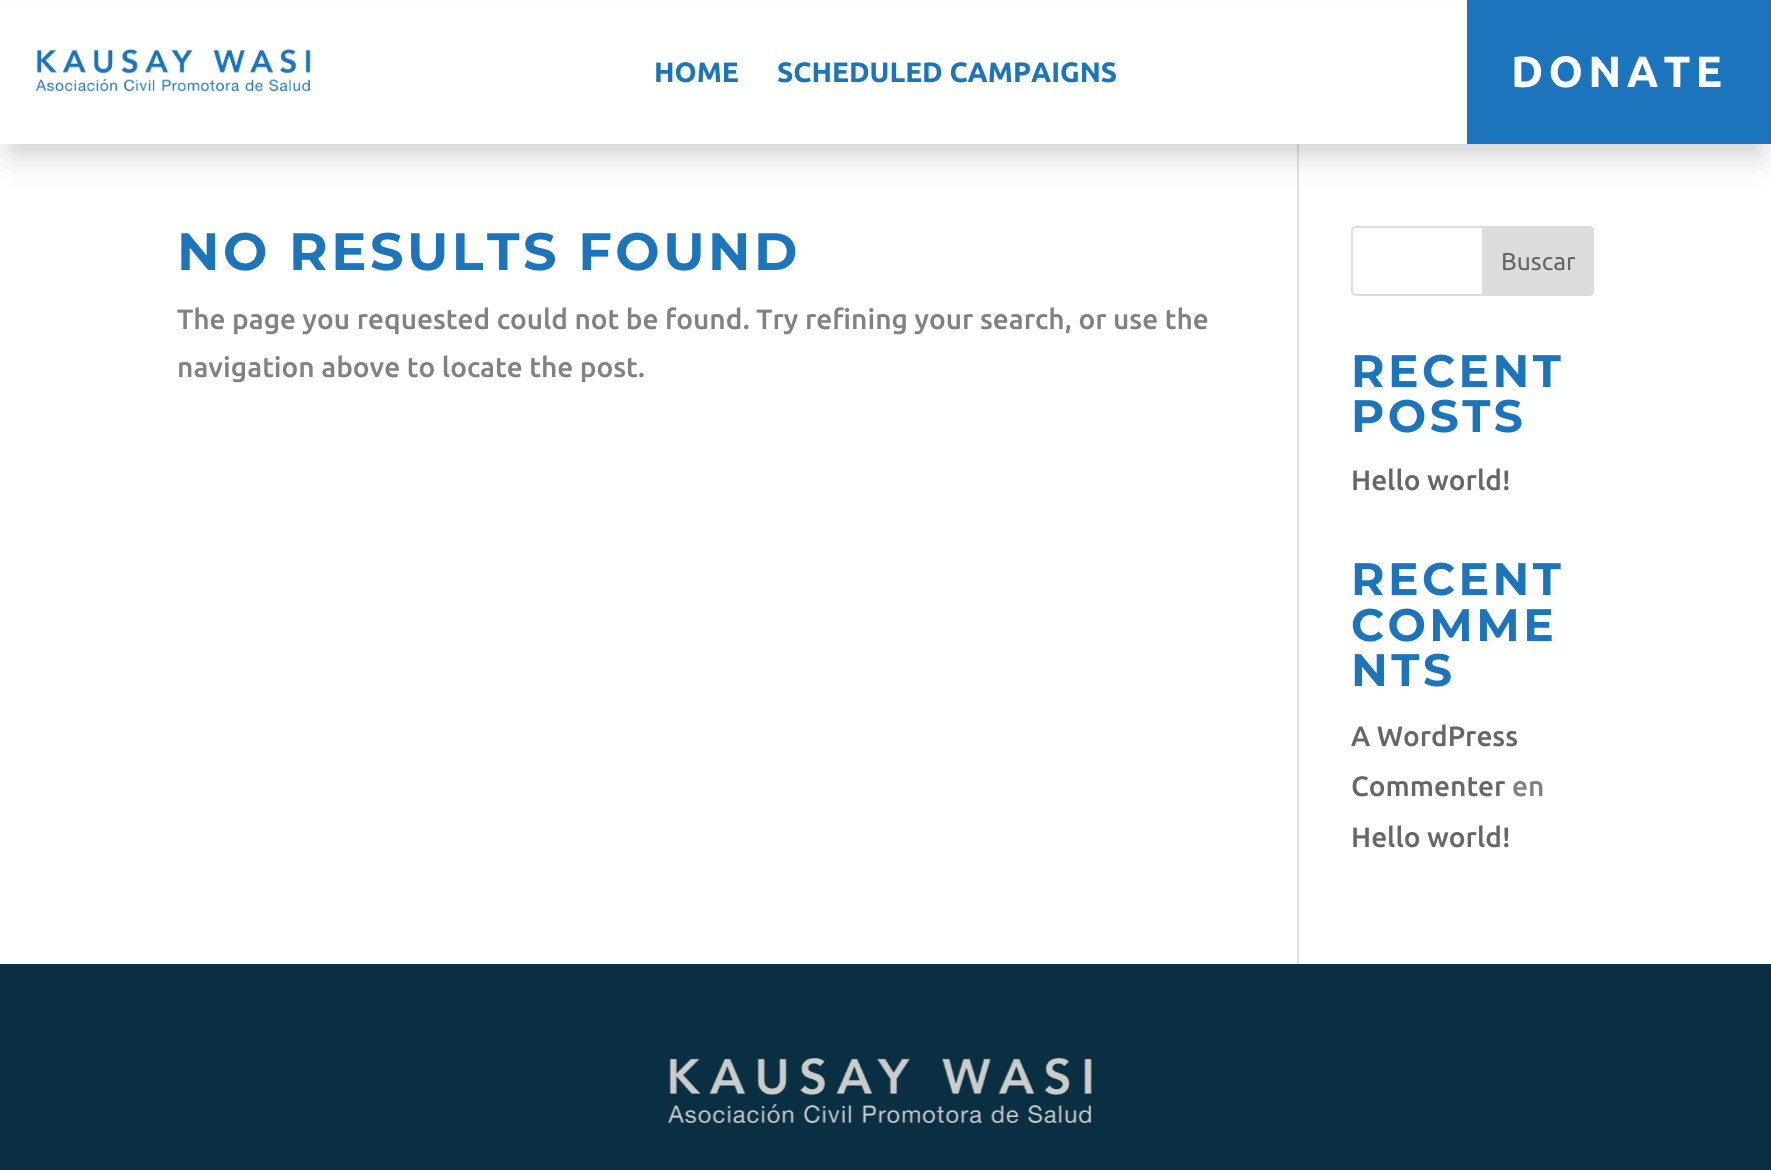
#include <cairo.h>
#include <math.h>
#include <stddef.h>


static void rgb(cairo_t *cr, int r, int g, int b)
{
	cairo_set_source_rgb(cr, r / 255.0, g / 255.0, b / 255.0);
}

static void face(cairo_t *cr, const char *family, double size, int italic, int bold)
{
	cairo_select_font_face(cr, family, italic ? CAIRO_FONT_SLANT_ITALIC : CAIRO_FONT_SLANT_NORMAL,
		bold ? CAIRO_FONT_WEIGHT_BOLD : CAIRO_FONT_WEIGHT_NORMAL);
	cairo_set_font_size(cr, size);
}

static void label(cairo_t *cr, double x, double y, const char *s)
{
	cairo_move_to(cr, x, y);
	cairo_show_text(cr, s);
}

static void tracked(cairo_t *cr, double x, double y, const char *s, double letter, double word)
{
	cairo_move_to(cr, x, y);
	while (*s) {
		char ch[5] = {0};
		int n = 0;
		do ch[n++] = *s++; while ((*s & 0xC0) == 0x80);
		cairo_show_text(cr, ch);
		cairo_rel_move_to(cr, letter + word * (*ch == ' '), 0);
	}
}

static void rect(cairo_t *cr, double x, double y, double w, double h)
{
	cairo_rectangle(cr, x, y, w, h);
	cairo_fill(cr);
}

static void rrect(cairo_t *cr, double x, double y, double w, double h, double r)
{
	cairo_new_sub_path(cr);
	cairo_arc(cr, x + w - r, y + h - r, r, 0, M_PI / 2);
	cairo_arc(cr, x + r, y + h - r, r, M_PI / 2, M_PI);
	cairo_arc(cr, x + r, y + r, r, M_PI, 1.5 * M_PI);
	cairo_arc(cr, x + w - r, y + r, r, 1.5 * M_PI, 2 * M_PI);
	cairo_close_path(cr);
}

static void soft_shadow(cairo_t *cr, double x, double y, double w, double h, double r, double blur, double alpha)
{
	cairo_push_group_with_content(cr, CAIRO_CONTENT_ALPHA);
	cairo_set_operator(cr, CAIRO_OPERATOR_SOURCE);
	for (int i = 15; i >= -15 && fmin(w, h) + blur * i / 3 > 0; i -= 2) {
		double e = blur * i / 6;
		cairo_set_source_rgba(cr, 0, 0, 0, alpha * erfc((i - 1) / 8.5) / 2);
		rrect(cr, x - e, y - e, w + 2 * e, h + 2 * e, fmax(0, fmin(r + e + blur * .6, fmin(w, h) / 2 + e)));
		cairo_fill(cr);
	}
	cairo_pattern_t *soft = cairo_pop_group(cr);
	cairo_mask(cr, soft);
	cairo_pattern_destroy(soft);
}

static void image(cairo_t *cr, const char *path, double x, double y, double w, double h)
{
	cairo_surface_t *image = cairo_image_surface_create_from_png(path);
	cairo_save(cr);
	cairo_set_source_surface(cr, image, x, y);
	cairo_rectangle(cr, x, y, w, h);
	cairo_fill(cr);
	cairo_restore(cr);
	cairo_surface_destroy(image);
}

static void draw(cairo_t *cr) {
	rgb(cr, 255, 255, 255);
	cairo_paint(cr);
	rgb(cr, 226, 226, 226);
	rect(cr, 1297, 144, 2, 820);
	rgb(cr, 0, 0, 0);
	soft_shadow(cr, 11, 32, 1750, 122, 0, 16, 0.2);
	rgb(cr, 255, 255, 255);
	rect(cr, 0, 6, 1467, 138);
	image(cr, "image0.png", 35, 49, 276, 42);
	face(cr, "Ubuntu", 28, 0, 1);
	rgb(cr, 28, 117, 187);
	label(cr, 654, 82, "HOME");
	label(cr, 777, 82, "SCHEDULED CAMPAIGNS");
	rgb(cr, 28, 117, 188);
	rect(cr, 1467, 0, 304, 144);
	face(cr, "Ubuntu", 43.75, 0, 1);
	rgb(cr, 255, 255, 255);
	tracked(cr, 1511, 87, "DONATE", 5.25, 0);
	face(cr, "Montserrat Thin", 52.5, 0, 0);
	rgb(cr, 28, 117, 187);
	tracked(cr, 177, 270, "NO RESULTS FOUND", 3.5, 0);
	face(cr, "Ubuntu Medium", 28, 0, 0);
	rgb(cr, 128, 129, 132);
	label(cr, 177, 329, "The page you requested could not be found. Try refining your search, or use the");
	label(cr, 177, 377, "navigation above to locate the post.");
	rrect(cr, 1352, 227, 241, 68, 4);
	rgb(cr, 221, 221, 221);
	cairo_stroke(cr);
	cairo_new_path(cr);
	cairo_move_to(cr, 1483, 227);
	cairo_line_to(cr, 1589, 227);
	cairo_curve_to(cr, 1591, 227, 1593, 229, 1593, 231);
	cairo_line_to(cr, 1593, 291);
	cairo_curve_to(cr, 1593, 293, 1591, 295, 1589, 295);
	cairo_line_to(cr, 1483, 295);
	cairo_close_path(cr);
	cairo_fill_preserve(cr);
	cairo_stroke(cr);
	face(cr, "Ubuntu", 24.5, 0, 0);
	rgb(cr, 102, 102, 102);
	label(cr, 1501, 270, "Buscar");
	face(cr, "Montserrat Thin", 45.5, 0, 0);
	rgb(cr, 28, 117, 187);
	tracked(cr, 1351, 387, "RECENT", 3.5, 0);
	tracked(cr, 1351, 432, "POSTS", 3.5, 0);
	face(cr, "Ubuntu Medium", 28, 0, 0);
	rgb(cr, 102, 102, 102);
	label(cr, 1351, 490, "Hello world!");
	face(cr, "Montserrat Thin", 45.5, 0, 0);
	rgb(cr, 28, 117, 187);
	tracked(cr, 1351, 595, "RECENT", 3.5, 0);
	tracked(cr, 1351, 641, "COMME", 3.5, 0);
	tracked(cr, 1351, 686, "NTS", 3.5, 0);
	face(cr, "Ubuntu Medium", 28, 0, 0);
	rgb(cr, 102, 102, 102);
	label(cr, 1351, 746, "A WordPress");
	label(cr, 1351, 796, "Commenter");
	rgb(cr, 128, 129, 132);
	label(cr, 1512, 796, "en");
	rgb(cr, 102, 102, 102);
	label(cr, 1351, 847, "Hello world!");
	rgb(cr, 10, 47, 66);
	rect(cr, 0, 964, 1771, 206);
	image(cr, "image1.png", 667, 1058, 425, 65);
}

int main(void) {
	cairo_surface_t *surface = cairo_image_surface_create(CAIRO_FORMAT_RGB24, 1771, 1170);
	cairo_t *cr = cairo_create(surface);
	cairo_font_options_t *options = cairo_font_options_create();
	cairo_font_options_set_hint_metrics(options, CAIRO_HINT_METRICS_OFF);
	cairo_font_options_set_hint_style(options, CAIRO_HINT_STYLE_NONE);
	cairo_set_font_options(cr, options);
	cairo_set_miter_limit(cr, 4);
	draw(cr);
	cairo_surface_write_to_png(surface, "render.png");
	cairo_font_options_destroy(options);
	cairo_destroy(cr);
	cairo_surface_destroy(surface);
	return 0;
}
